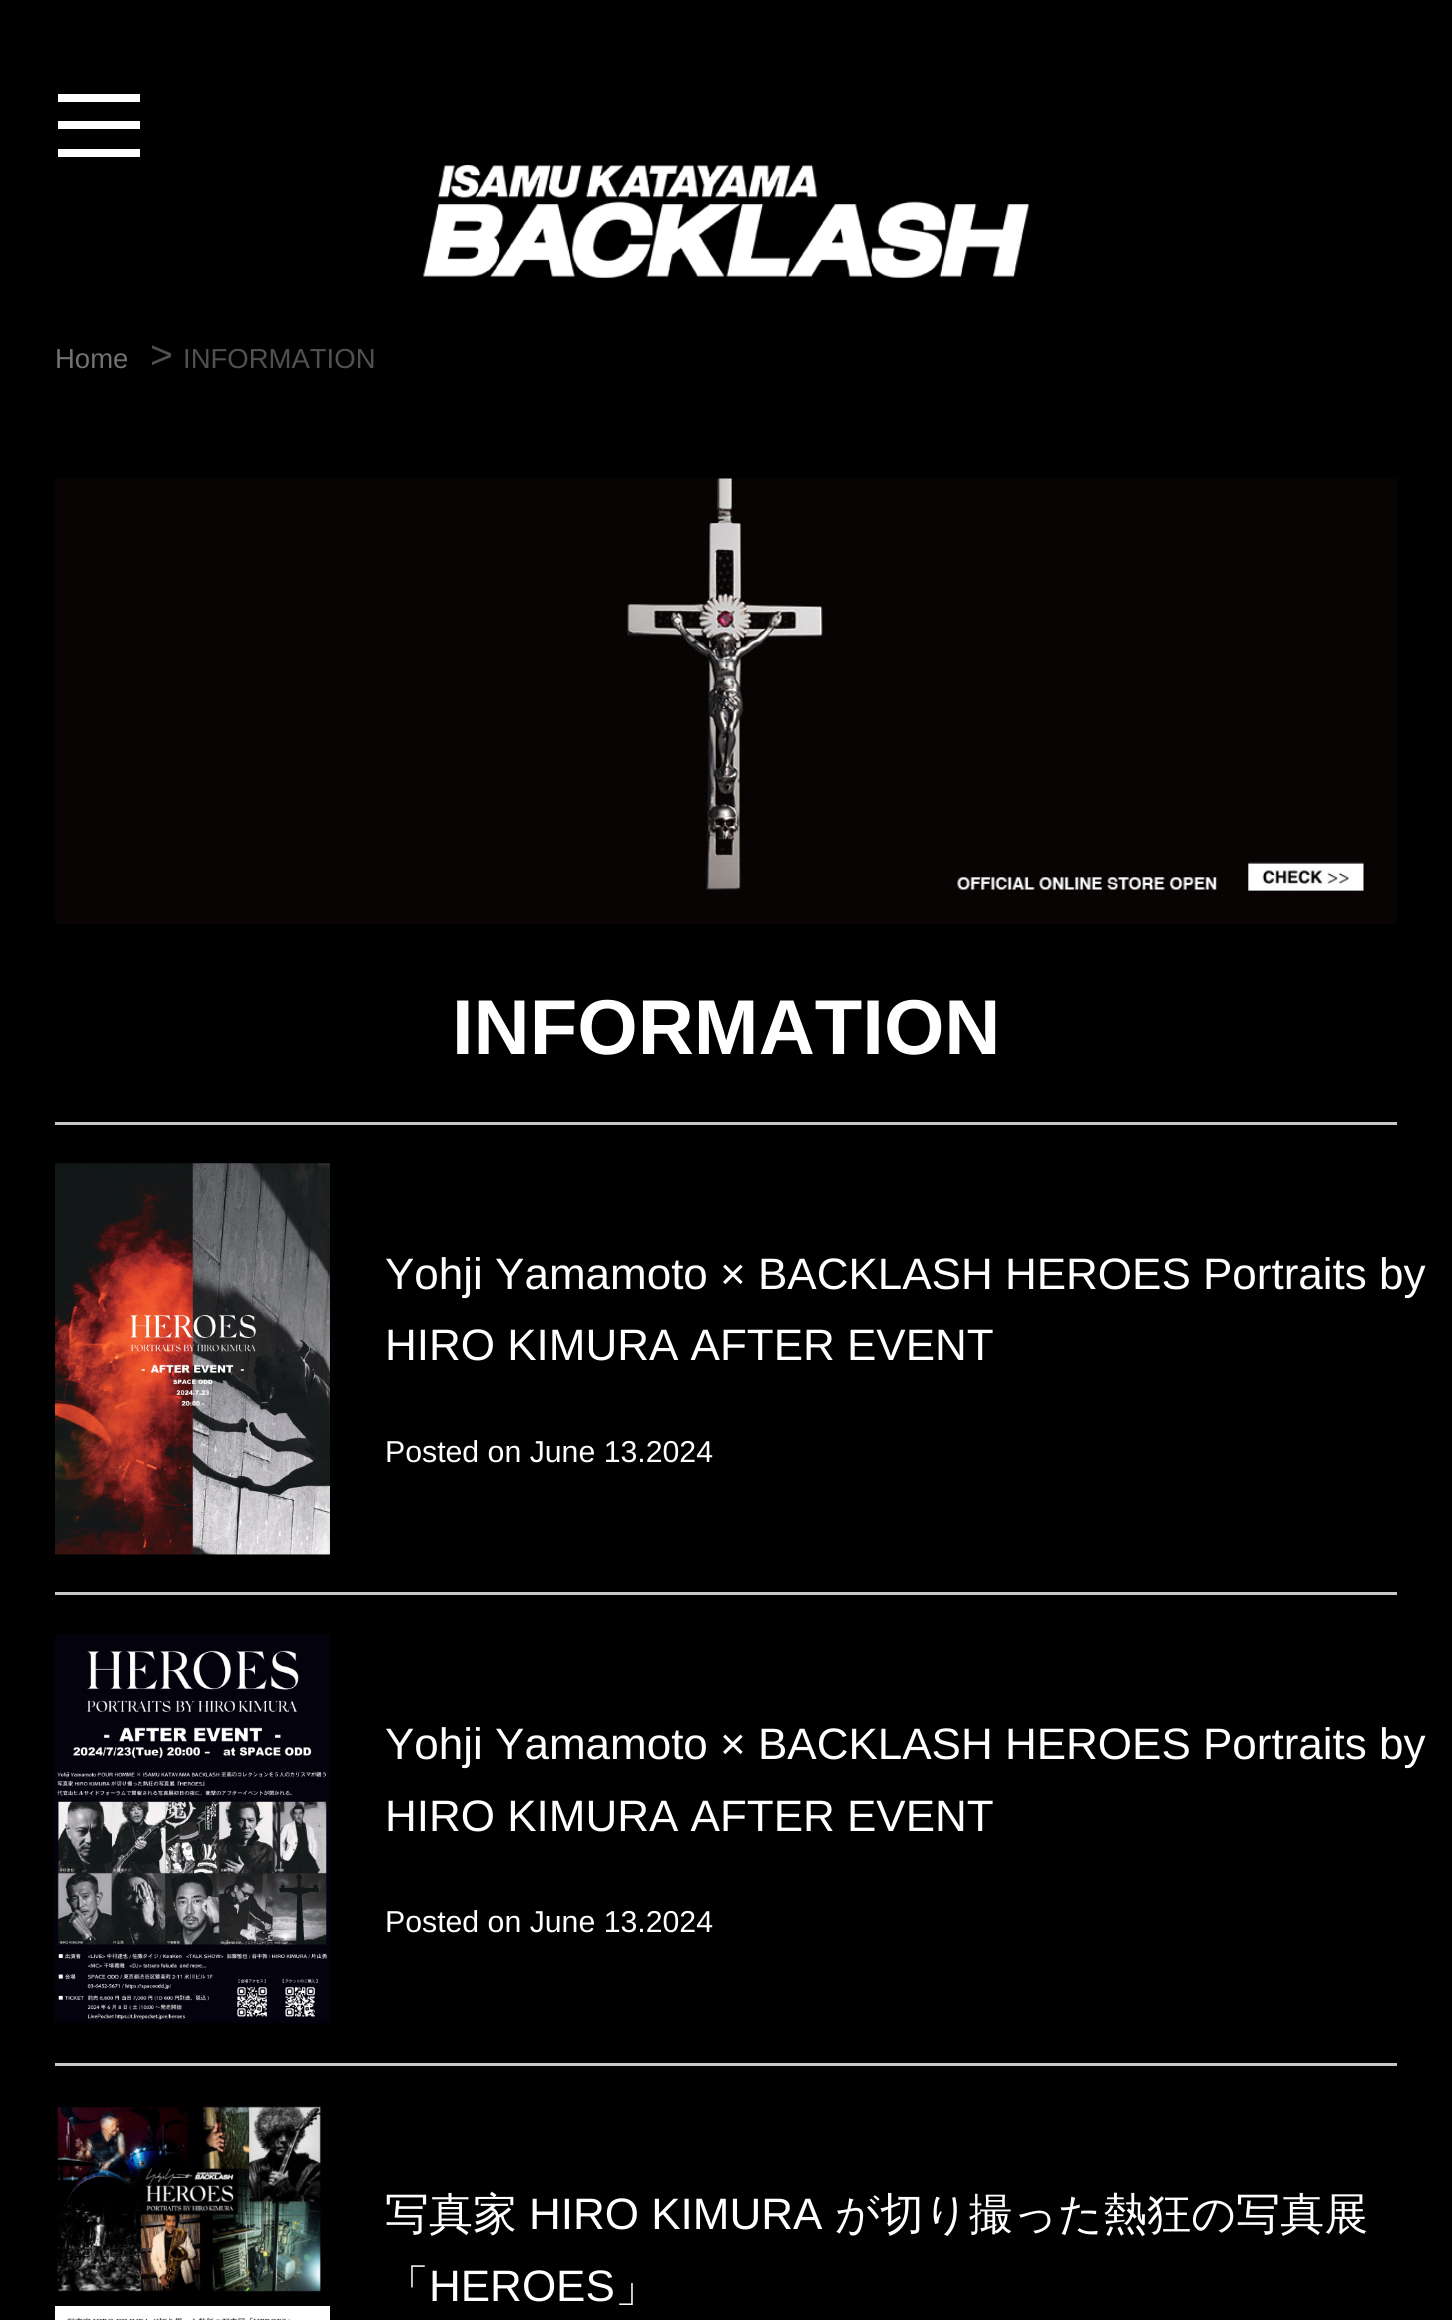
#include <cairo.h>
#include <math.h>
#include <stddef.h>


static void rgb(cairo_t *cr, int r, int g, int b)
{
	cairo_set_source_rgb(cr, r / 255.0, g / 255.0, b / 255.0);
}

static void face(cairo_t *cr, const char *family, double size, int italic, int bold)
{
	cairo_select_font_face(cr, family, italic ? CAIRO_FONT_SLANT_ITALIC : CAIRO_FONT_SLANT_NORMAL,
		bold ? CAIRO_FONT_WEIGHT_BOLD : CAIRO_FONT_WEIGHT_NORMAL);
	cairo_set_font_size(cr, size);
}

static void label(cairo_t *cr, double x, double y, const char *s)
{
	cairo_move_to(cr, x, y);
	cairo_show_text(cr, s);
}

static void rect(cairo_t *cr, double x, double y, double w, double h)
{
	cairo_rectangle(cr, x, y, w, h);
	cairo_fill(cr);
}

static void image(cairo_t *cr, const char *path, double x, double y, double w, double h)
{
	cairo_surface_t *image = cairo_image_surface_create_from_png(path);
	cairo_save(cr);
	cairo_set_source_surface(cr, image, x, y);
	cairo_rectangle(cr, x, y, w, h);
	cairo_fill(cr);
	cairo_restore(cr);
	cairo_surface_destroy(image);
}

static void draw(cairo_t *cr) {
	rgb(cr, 0, 0, 0);
	cairo_paint(cr);
	rgb(cr, 255, 255, 255);
	rect(cr, 58, 121, 82, 8);
	rect(cr, 58, 94, 82, 8);
	rect(cr, 58, 149, 82, 8);
	image(cr, "image0.png", 423, 165, 606, 113);
	face(cr, "Liberation Sans", 27.5, 0, 0);
	rgb(cr, 113, 113, 113);
	label(cr, 55, 368, "Home");
	face(cr, "Liberation Sans", 39, 0, 0);
	rgb(cr, 80, 80, 80);
	label(cr, 150, 368, ">");
	face(cr, "Liberation Sans", 27.5, 0, 0);
	label(cr, 183, 368, "INFORMATION");
	image(cr, "image1.png", 55, 478, 1342, 446);
	face(cr, "Liberation Sans", 77.75, 0, 1);
	rgb(cr, 255, 255, 255);
	label(cr, 452, 1054, "INFORMATION");
	rgb(cr, 200, 200, 200);
	rect(cr, 55, 1122, 1342, 3);
	rect(cr, 55, 1592, 1342, 3);
	image(cr, "image2.png", 55, 1163, 275, 392);
	face(cr, "Liberation Sans", 44, 0, 0);
	rgb(cr, 255, 255, 255);
	label(cr, 385, 1289, "Yohji Yamamoto × BACKLASH HEROES Portraits by");
	label(cr, 385, 1360, "HIRO KIMURA AFTER EVENT");
	face(cr, "Liberation Sans", 30.25, 0, 0);
	label(cr, 385, 1462, "Posted on June 13.2024");
	rgb(cr, 200, 200, 200);
	rect(cr, 55, 2063, 1342, 3);
	image(cr, "image3.png", 55, 1634, 275, 389);
	face(cr, "Liberation Sans", 44, 0, 0);
	rgb(cr, 255, 255, 255);
	label(cr, 385, 1759, "Yohji Yamamoto × BACKLASH HEROES Portraits by");
	label(cr, 385, 1831, "HIRO KIMURA AFTER EVENT");
	face(cr, "Liberation Sans", 30.25, 0, 0);
	label(cr, 385, 1932, "Posted on June 13.2024");
	image(cr, "image4.png", 55, 2106, 275, 214);
	face(cr, "WenQuanYi Zen Hei Medium", 44, 0, 0);
	label(cr, 385, 2229, "写真家");
	face(cr, "Liberation Sans", 44, 0, 0);
	label(cr, 529, 2229, "HIRO KIMURA");
	face(cr, "WenQuanYi Zen Hei Medium", 44, 0, 0);
	label(cr, 835, 2229, "が切り撮った熱狂の写真展");
	label(cr, 385, 2301, "「");
	face(cr, "Liberation Sans", 44, 0, 0);
	label(cr, 429, 2301, "HEROES");
	face(cr, "WenQuanYi Zen Hei Medium", 44, 0, 0);
	label(cr, 615, 2301, "」");
}

int main(void) {
	cairo_surface_t *surface = cairo_image_surface_create(CAIRO_FORMAT_RGB24, 1452, 2320);
	cairo_t *cr = cairo_create(surface);
	cairo_font_options_t *options = cairo_font_options_create();
	cairo_font_options_set_hint_metrics(options, CAIRO_HINT_METRICS_OFF);
	cairo_font_options_set_hint_style(options, CAIRO_HINT_STYLE_NONE);
	cairo_set_font_options(cr, options);
	cairo_set_miter_limit(cr, 4);
	draw(cr);
	cairo_surface_write_to_png(surface, "render.png");
	cairo_font_options_destroy(options);
	cairo_destroy(cr);
	cairo_surface_destroy(surface);
	return 0;
}
